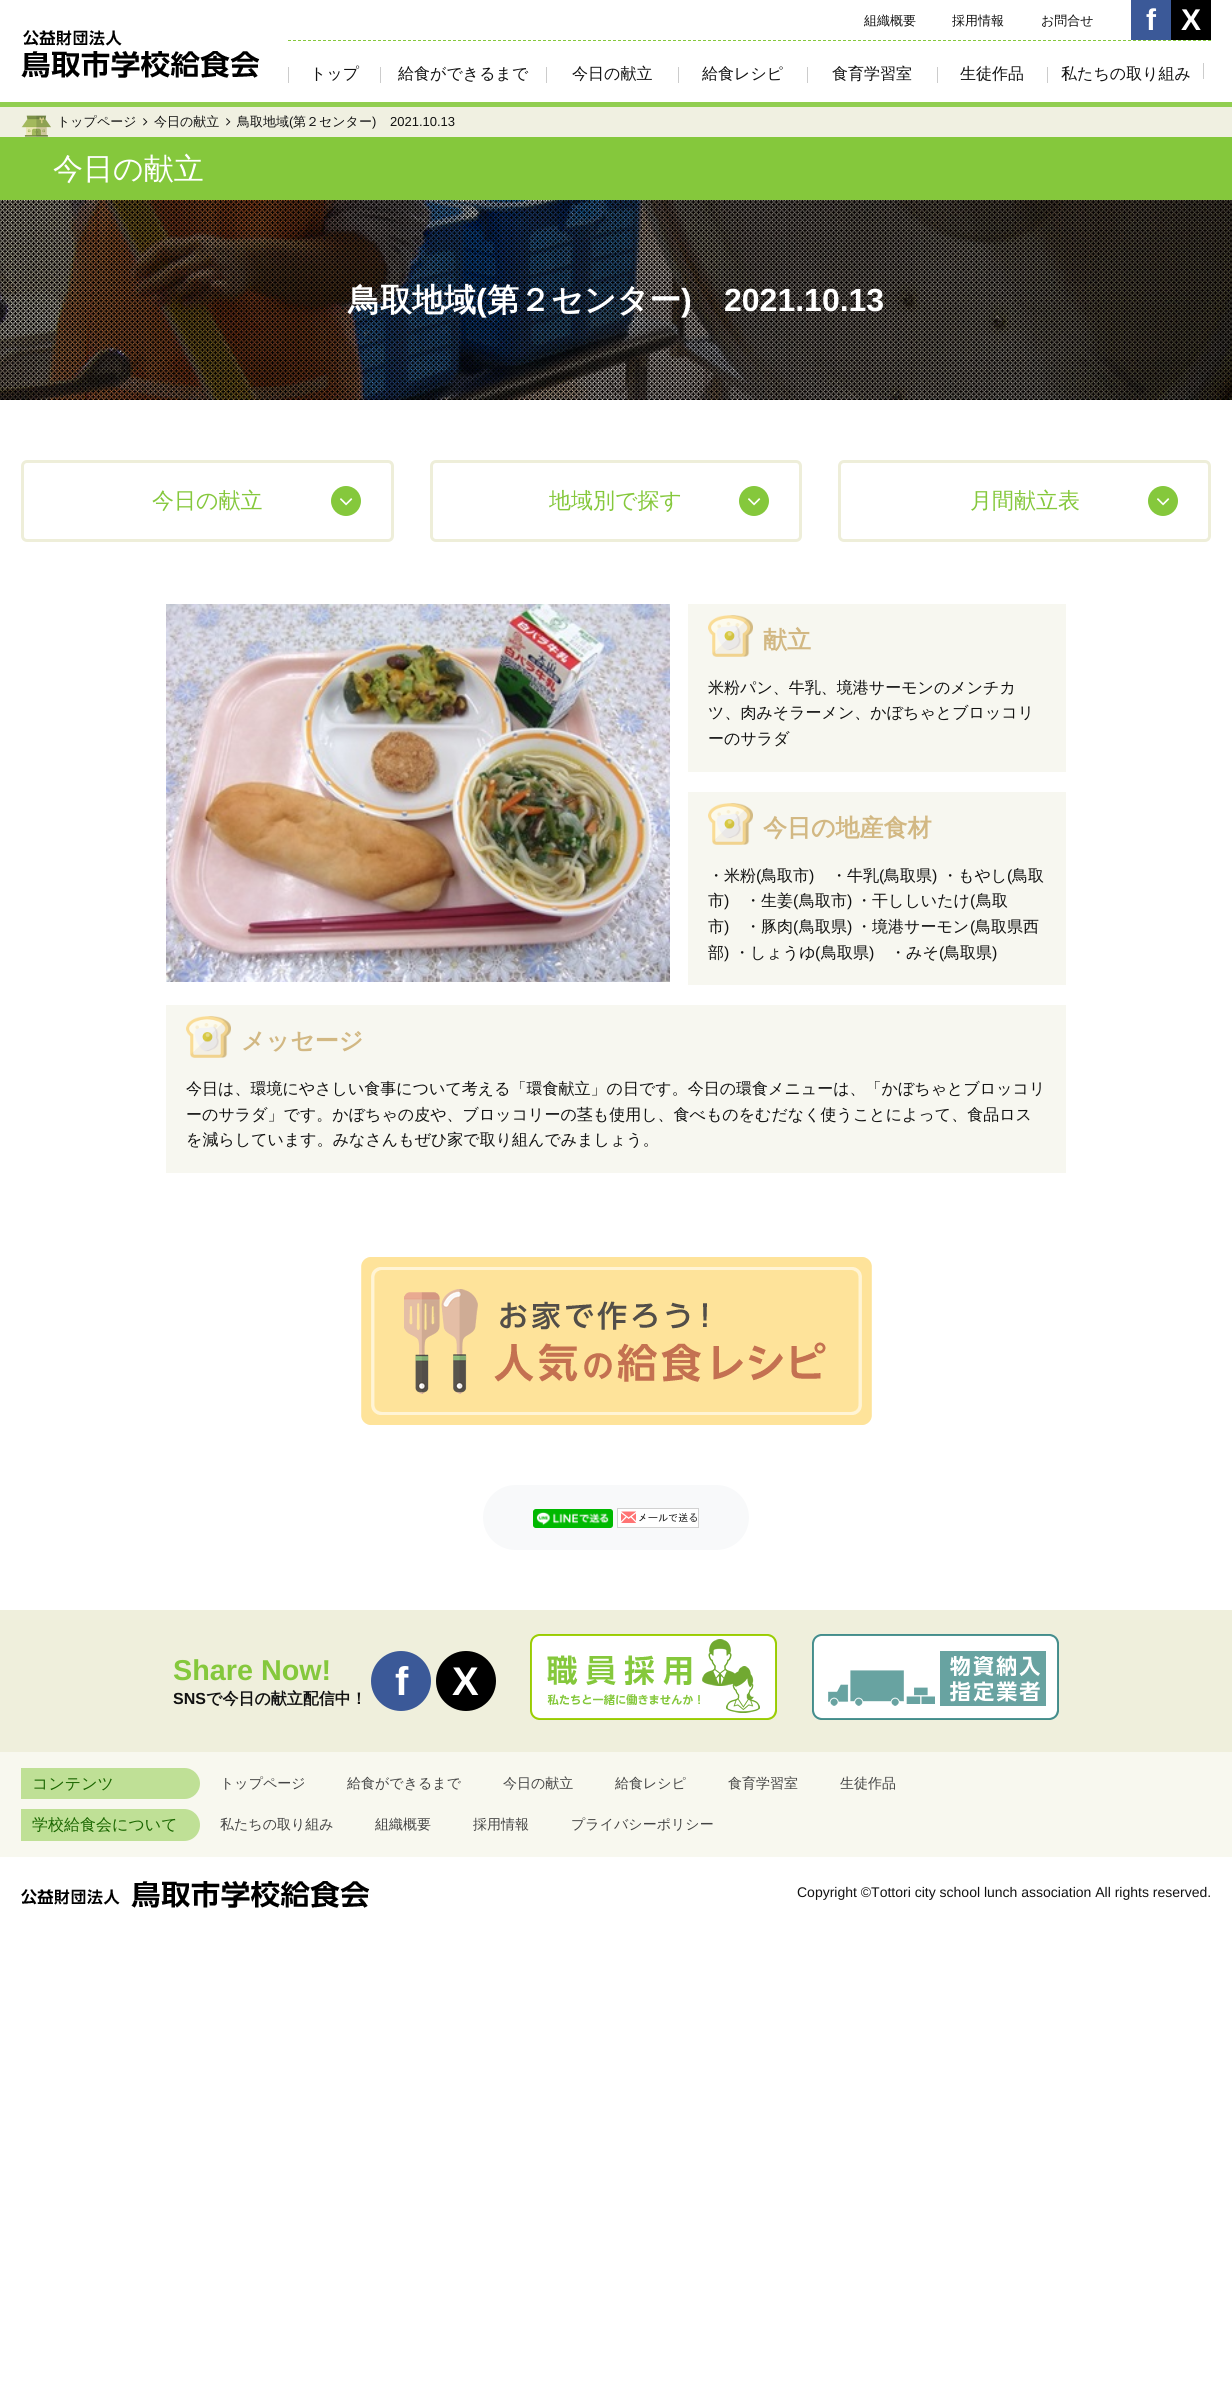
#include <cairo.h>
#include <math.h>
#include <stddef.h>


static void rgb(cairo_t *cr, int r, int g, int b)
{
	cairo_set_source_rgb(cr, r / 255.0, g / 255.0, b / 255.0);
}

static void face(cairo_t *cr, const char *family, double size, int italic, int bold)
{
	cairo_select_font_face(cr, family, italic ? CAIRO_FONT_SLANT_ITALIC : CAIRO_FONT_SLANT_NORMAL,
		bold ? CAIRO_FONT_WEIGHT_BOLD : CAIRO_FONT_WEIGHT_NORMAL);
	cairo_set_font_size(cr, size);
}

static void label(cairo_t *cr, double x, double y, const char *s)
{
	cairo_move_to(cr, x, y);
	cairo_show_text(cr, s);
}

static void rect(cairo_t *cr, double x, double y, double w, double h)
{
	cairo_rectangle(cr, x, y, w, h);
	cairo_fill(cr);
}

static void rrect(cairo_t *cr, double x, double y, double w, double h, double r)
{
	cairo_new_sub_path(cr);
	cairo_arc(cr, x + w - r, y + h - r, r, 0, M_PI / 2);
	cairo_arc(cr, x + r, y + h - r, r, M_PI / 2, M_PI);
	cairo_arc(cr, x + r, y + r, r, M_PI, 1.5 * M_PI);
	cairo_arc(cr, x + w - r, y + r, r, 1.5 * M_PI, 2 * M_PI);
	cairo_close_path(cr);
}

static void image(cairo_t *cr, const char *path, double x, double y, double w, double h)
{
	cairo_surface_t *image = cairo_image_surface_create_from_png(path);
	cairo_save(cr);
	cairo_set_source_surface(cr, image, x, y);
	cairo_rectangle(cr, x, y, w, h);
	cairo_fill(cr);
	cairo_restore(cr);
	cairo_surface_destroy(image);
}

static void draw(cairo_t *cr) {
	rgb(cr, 255, 255, 255);
	cairo_paint(cr);
	rgb(cr, 145, 206, 80);
	rect(cr, 0, 102, 1232, 5);
	image(cr, "image0.png", 21, 30, 239, 48);
	cairo_new_path(cr);
	cairo_move_to(cr, 288, 40.5);
	cairo_line_to(cr, 1211, 40.5);
	rgb(cr, 133, 200, 60);
	cairo_set_line_width(cr, 1);
	cairo_set_dash(cr, (double[]){3, 2}, 2, 0);
	cairo_stroke(cr);
	face(cr, "WenQuanYi Zen Hei Medium", 13, 0, 0);
	rgb(cr, 17, 17, 17);
	label(cr, 864, 25, "組織概要");
	label(cr, 952, 25, "採用情報");
	label(cr, 1041, 25, "お問合せ");
	rgb(cr, 59, 89, 152);
	rect(cr, 1131, 0, 40, 40);
	face(cr, "Liberation Sans", 30, 0, 1);
	rgb(cr, 255, 255, 255);
	label(cr, 1146, 30, "f");
	rgb(cr, 0, 0, 0);
	rect(cr, 1171, 0, 40, 40);
	rgb(cr, 255, 255, 255);
	label(cr, 1181, 30, "X");
	rgb(cr, 204, 204, 204);
	rect(cr, 288, 67, 1, 16);
	face(cr, "WenQuanYi Zen Hei Medium", 16, 0, 0);
	rgb(cr, 17, 17, 17);
	label(cr, 310, 79, "トップ");
	rgb(cr, 204, 204, 204);
	rect(cr, 380, 67, 1, 16);
	rgb(cr, 17, 17, 17);
	label(cr, 398, 79, "給食ができるまで");
	rgb(cr, 204, 204, 204);
	rect(cr, 546, 67, 1, 16);
	rgb(cr, 17, 17, 17);
	label(cr, 572, 79, "今日の献立");
	rgb(cr, 204, 204, 204);
	rect(cr, 678, 67, 1, 16);
	rgb(cr, 17, 17, 17);
	label(cr, 702, 79, "給食レシピ");
	rgb(cr, 204, 204, 204);
	rect(cr, 807, 67, 1, 16);
	rgb(cr, 17, 17, 17);
	label(cr, 832, 79, "食育学習室");
	rgb(cr, 204, 204, 204);
	rect(cr, 937, 67, 1, 16);
	rgb(cr, 17, 17, 17);
	label(cr, 960, 79, "生徒作品");
	rgb(cr, 204, 204, 204);
	rect(cr, 1047, 67, 1, 16);
	rgb(cr, 17, 17, 17);
	label(cr, 1061, 79, "私たちの取り組み");
	rgb(cr, 204, 204, 204);
	rect(cr, 1203, 63, 1, 16);
	rgb(cr, 240, 240, 225);
	rect(cr, 0, 107, 1232, 30);
	image(cr, "image1.png", 21, 115, 30, 22);
	face(cr, "WenQuanYi Zen Hei Medium", 13, 0, 0);
	rgb(cr, 17, 17, 17);
	label(cr, 57, 126, "トップページ");
	image(cr, "image2.png", 143, 118, 5, 8);
	label(cr, 154, 126, "今日の献立");
	image(cr, "image2.png", 226, 118, 5, 8);
	label(cr, 237, 126, "鳥取地域");
	face(cr, "Liberation Sans", 13, 0, 0);
	label(cr, 289, 126, "(");
	face(cr, "WenQuanYi Zen Hei Medium", 13, 0, 0);
	label(cr, 293, 126, "第２センター");
	face(cr, "Liberation Sans", 13, 0, 0);
	label(cr, 372, 126, ")");
	label(cr, 390, 126, "2021.10.13");
	rgb(cr, 133, 200, 60);
	rect(cr, 0, 137, 1232, 63);
	face(cr, "WenQuanYi Zen Hei Medium", 30, 0, 0);
	rgb(cr, 255, 255, 255);
	label(cr, 53, 179, "今日の献立");
	image(cr, "image3.png", 0, 200, 1232, 200);
	face(cr, "WenQuanYi Zen Hei", 32, 0, 1);
	label(cr, 348, 311, "鳥取地域");
	face(cr, "Liberation Sans", 32, 0, 1);
	label(cr, 476, 311, "(");
	face(cr, "WenQuanYi Zen Hei", 32, 0, 1);
	label(cr, 487, 311, "第２センター");
	face(cr, "Liberation Sans", 32, 0, 1);
	label(cr, 681, 311, ")");
	label(cr, 724, 311, "2021.10.13");
	rrect(cr, 22.5, 461.5, 370, 79, 4.5);
	rgb(cr, 238, 238, 217);
	cairo_set_line_width(cr, 3);
	cairo_set_dash(cr, NULL, 0, 0);
	cairo_stroke(cr);
	face(cr, "WenQuanYi Zen Hei Medium", 22, 0, 0);
	rgb(cr, 133, 200, 60);
	label(cr, 152, 508, "今日の献立");
	cairo_new_path(cr);
	cairo_arc(cr, 346, 501, 15, 0, 2 * M_PI);
	cairo_fill(cr);
	image(cr, "image4.png", 340, 498, 13, 8);
	rrect(cr, 431.5, 461.5, 369, 79, 4.5);
	rgb(cr, 238, 238, 217);
	cairo_stroke(cr);
	rgb(cr, 133, 200, 60);
	label(cr, 549, 508, "地域別で探す");
	cairo_new_path(cr);
	cairo_arc(cr, 754, 501, 15, 0, 2 * M_PI);
	cairo_fill(cr);
	image(cr, "image4.png", 748, 498, 13, 8);
	rrect(cr, 839.5, 461.5, 370, 79, 4.5);
	rgb(cr, 238, 238, 217);
	cairo_stroke(cr);
	rgb(cr, 133, 200, 60);
	label(cr, 970, 508, "月間献立表");
	cairo_new_path(cr);
	cairo_arc(cr, 1163, 501, 15, 0, 2 * M_PI);
	cairo_fill(cr);
	image(cr, "image4.png", 1157, 498, 13, 8);
	image(cr, "image5.png", 166, 604, 504, 378);
	rgb(cr, 247, 247, 240);
	rect(cr, 688, 604, 378, 381);
	image(cr, "image6.png", 708, 615, 45, 42);
	face(cr, "WenQuanYi Zen Hei", 24, 0, 1);
	rgb(cr, 210, 184, 131);
	label(cr, 763, 648, "献立");
	face(cr, "WenQuanYi Zen Hei Medium", 16, 0, 0);
	rgb(cr, 17, 17, 17);
	label(cr, 708, 693, "米粉パン、牛乳、境港サーモンのメンチカ");
	label(cr, 708, 718, "ツ、肉みそラーメン、かぼちゃとブロッコリ");
	label(cr, 708, 744, "ーのサラダ");
	rgb(cr, 255, 255, 255);
	rect(cr, 688, 772, 378, 20);
	image(cr, "image6.png", 708, 803, 45, 42);
	face(cr, "WenQuanYi Zen Hei", 24, 0, 1);
	rgb(cr, 210, 184, 131);
	label(cr, 763, 836, "今日の地産食材");
	face(cr, "WenQuanYi Zen Hei Medium", 16, 0, 0);
	rgb(cr, 17, 17, 17);
	label(cr, 708, 881, "・米粉");
	face(cr, "Liberation Sans", 16, 0, 0);
	label(cr, 756, 881, "(");
	face(cr, "WenQuanYi Zen Hei Medium", 16, 0, 0);
	label(cr, 761, 881, "鳥取市");
	face(cr, "Liberation Sans", 16, 0, 0);
	label(cr, 809, 881, ")");
	face(cr, "WenQuanYi Zen Hei Medium", 16, 0, 0);
	label(cr, 831, 881, "・牛乳");
	face(cr, "Liberation Sans", 16, 0, 0);
	label(cr, 879, 881, "(");
	face(cr, "WenQuanYi Zen Hei Medium", 16, 0, 0);
	label(cr, 884, 881, "鳥取県");
	face(cr, "Liberation Sans", 16, 0, 0);
	label(cr, 932, 881, ")");
	face(cr, "WenQuanYi Zen Hei Medium", 16, 0, 0);
	label(cr, 942, 881, "・もやし");
	face(cr, "Liberation Sans", 16, 0, 0);
	label(cr, 1007, 881, "(");
	face(cr, "WenQuanYi Zen Hei Medium", 16, 0, 0);
	label(cr, 1012, 881, "鳥取");
	label(cr, 708, 906, "市");
	face(cr, "Liberation Sans", 16, 0, 0);
	label(cr, 724, 906, ")");
	face(cr, "WenQuanYi Zen Hei Medium", 16, 0, 0);
	label(cr, 745, 906, "・生姜");
	face(cr, "Liberation Sans", 16, 0, 0);
	label(cr, 793, 906, "(");
	face(cr, "WenQuanYi Zen Hei Medium", 16, 0, 0);
	label(cr, 799, 906, "鳥取市");
	face(cr, "Liberation Sans", 16, 0, 0);
	label(cr, 847, 906, ")");
	face(cr, "WenQuanYi Zen Hei Medium", 16, 0, 0);
	label(cr, 856, 906, "・干ししいたけ");
	face(cr, "Liberation Sans", 16, 0, 0);
	label(cr, 970, 906, "(");
	face(cr, "WenQuanYi Zen Hei Medium", 16, 0, 0);
	label(cr, 976, 906, "鳥取");
	label(cr, 708, 932, "市");
	face(cr, "Liberation Sans", 16, 0, 0);
	label(cr, 724, 932, ")");
	face(cr, "WenQuanYi Zen Hei Medium", 16, 0, 0);
	label(cr, 745, 932, "・豚肉");
	face(cr, "Liberation Sans", 16, 0, 0);
	label(cr, 793, 932, "(");
	face(cr, "WenQuanYi Zen Hei Medium", 16, 0, 0);
	label(cr, 799, 932, "鳥取県");
	face(cr, "Liberation Sans", 16, 0, 0);
	label(cr, 847, 932, ")");
	face(cr, "WenQuanYi Zen Hei Medium", 16, 0, 0);
	label(cr, 856, 932, "・境港サーモン");
	face(cr, "Liberation Sans", 16, 0, 0);
	label(cr, 970, 932, "(");
	face(cr, "WenQuanYi Zen Hei Medium", 16, 0, 0);
	label(cr, 975, 932, "鳥取県西");
	label(cr, 708, 958, "部");
	face(cr, "Liberation Sans", 16, 0, 0);
	label(cr, 724, 958, ")");
	face(cr, "WenQuanYi Zen Hei Medium", 16, 0, 0);
	label(cr, 734, 958, "・しょうゆ");
	face(cr, "Liberation Sans", 16, 0, 0);
	label(cr, 815, 958, "(");
	face(cr, "WenQuanYi Zen Hei Medium", 16, 0, 0);
	label(cr, 821, 958, "鳥取県");
	face(cr, "Liberation Sans", 16, 0, 0);
	label(cr, 869, 958, ")");
	face(cr, "WenQuanYi Zen Hei Medium", 16, 0, 0);
	label(cr, 890, 958, "・みそ");
	face(cr, "Liberation Sans", 16, 0, 0);
	label(cr, 939, 958, "(");
	face(cr, "WenQuanYi Zen Hei Medium", 16, 0, 0);
	label(cr, 944, 958, "鳥取県");
	face(cr, "Liberation Sans", 16, 0, 0);
	label(cr, 992, 958, ")");
	rgb(cr, 247, 247, 240);
	rect(cr, 166, 1005, 900, 168);
	image(cr, "image6.png", 186, 1016, 45, 42);
	face(cr, "WenQuanYi Zen Hei", 24, 0, 1);
	rgb(cr, 210, 184, 131);
	label(cr, 241, 1049, "メッセージ");
	face(cr, "WenQuanYi Zen Hei Medium", 16, 0, 0);
	rgb(cr, 17, 17, 17);
	label(cr, 186, 1094, "今日は、環境にやさしい食事について考える「環食献立」の日です。今日の環食メニューは、「かぼちゃとブロッコリ");
	label(cr, 186, 1120, "ーのサラダ」です。かぼちゃの皮や、ブロッコリーの茎も使用し、食べものをむだなく使うことによって、食品ロス");
	label(cr, 186, 1145, "を減らしています。みなさんもぜひ家で取り組んでみましょう。");
	image(cr, "image7.png", 361, 1257, 511, 168);
	rgb(cr, 248, 249, 250);
	rrect(cr, 483, 1485, 266, 65, 32.5);
	cairo_fill(cr);
	image(cr, "image8.png", 533, 1509, 80, 19);
	image(cr, "image9.png", 617, 1508, 82, 20);
	rgb(cr, 239, 239, 220);
	rect(cr, 0, 1610, 1232, 142);
	face(cr, "Liberation Sans", 28.75, 0, 1);
	rgb(cr, 133, 200, 60);
	label(cr, 173, 1680, "Share Now!");
	face(cr, "Liberation Sans", 16, 0, 1);
	rgb(cr, 17, 17, 17);
	label(cr, 173, 1704, "SNS");
	face(cr, "WenQuanYi Zen Hei", 16, 0, 1);
	label(cr, 206, 1704, "で今日の献立配信中！");
	rgb(cr, 59, 89, 152);
	cairo_new_path(cr);
	cairo_arc(cr, 401, 1681, 30, 0, 2 * M_PI);
	cairo_fill(cr);
	face(cr, "Liberation Sans", 40, 0, 1);
	rgb(cr, 255, 255, 255);
	label(cr, 395, 1695, "f");
	rgb(cr, 0, 0, 0);
	cairo_new_path(cr);
	cairo_arc(cr, 466, 1681, 30, 0, 2 * M_PI);
	cairo_fill(cr);
	rgb(cr, 255, 255, 255);
	label(cr, 452, 1695, "X");
	image(cr, "image10.png", 530, 1634, 247, 86);
	image(cr, "image11.png", 812, 1634, 247, 86);
	rgb(cr, 248, 248, 239);
	rect(cr, 0, 1752, 1232, 105);
	rgb(cr, 191, 224, 150);
	cairo_new_path(cr);
	cairo_move_to(cr, 21, 1768);
	cairo_line_to(cr, 184.5, 1768);
	cairo_curve_to(cr, 193, 1768, 200, 1775, 200, 1783.5);
	cairo_curve_to(cr, 200, 1792, 193, 1799, 184.5, 1799);
	cairo_line_to(cr, 21, 1799);
	cairo_close_path(cr);
	cairo_fill(cr);
	face(cr, "WenQuanYi Zen Hei Medium", 16, 0, 0);
	rgb(cr, 26, 102, 0);
	label(cr, 32, 1789, "コンテンツ");
	face(cr, "WenQuanYi Zen Hei Medium", 14, 0, 0);
	rgb(cr, 68, 68, 68);
	label(cr, 220, 1788, "トップページ");
	label(cr, 347, 1788, "給食ができるまで");
	label(cr, 503, 1788, "今日の献立");
	label(cr, 615, 1788, "給食レシピ");
	label(cr, 728, 1788, "食育学習室");
	label(cr, 840, 1788, "生徒作品");
	rgb(cr, 191, 224, 150);
	cairo_new_path(cr);
	cairo_move_to(cr, 21, 1809);
	cairo_line_to(cr, 184, 1809);
	cairo_curve_to(cr, 193, 1809, 200, 1816, 200, 1825);
	cairo_curve_to(cr, 200, 1834, 193, 1841, 184, 1841);
	cairo_line_to(cr, 21, 1841);
	cairo_close_path(cr);
	cairo_fill(cr);
	face(cr, "WenQuanYi Zen Hei Medium", 16, 0, 0);
	rgb(cr, 26, 102, 0);
	label(cr, 32, 1830, "学校給食会について");
	face(cr, "WenQuanYi Zen Hei Medium", 14, 0, 0);
	rgb(cr, 68, 68, 68);
	label(cr, 220, 1829, "私たちの取り組み");
	label(cr, 375, 1829, "組織概要");
	label(cr, 473, 1829, "採用情報");
	label(cr, 571, 1829, "プライバシーポリシー");
	image(cr, "image12.png", 21, 1881, 349, 27);
	face(cr, "Liberation Sans", 14, 0, 0);
	rgb(cr, 17, 17, 17);
	label(cr, 797, 1897, "Copyright ©Tottori city school lunch association All rights reserved.");
}

int main(void) {
	cairo_surface_t *surface = cairo_image_surface_create(CAIRO_FORMAT_RGB24, 1232, 2403);
	cairo_t *cr = cairo_create(surface);
	cairo_font_options_t *options = cairo_font_options_create();
	cairo_font_options_set_hint_metrics(options, CAIRO_HINT_METRICS_OFF);
	cairo_font_options_set_hint_style(options, CAIRO_HINT_STYLE_NONE);
	cairo_set_font_options(cr, options);
	cairo_set_miter_limit(cr, 4);
	draw(cr);
	cairo_surface_write_to_png(surface, "render.png");
	cairo_font_options_destroy(options);
	cairo_destroy(cr);
	cairo_surface_destroy(surface);
	return 0;
}
